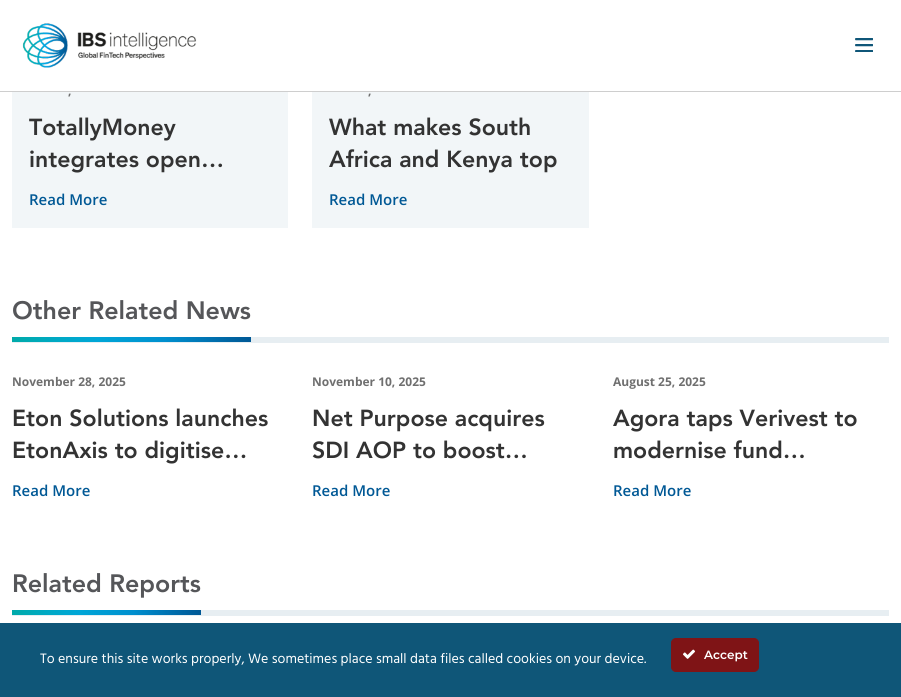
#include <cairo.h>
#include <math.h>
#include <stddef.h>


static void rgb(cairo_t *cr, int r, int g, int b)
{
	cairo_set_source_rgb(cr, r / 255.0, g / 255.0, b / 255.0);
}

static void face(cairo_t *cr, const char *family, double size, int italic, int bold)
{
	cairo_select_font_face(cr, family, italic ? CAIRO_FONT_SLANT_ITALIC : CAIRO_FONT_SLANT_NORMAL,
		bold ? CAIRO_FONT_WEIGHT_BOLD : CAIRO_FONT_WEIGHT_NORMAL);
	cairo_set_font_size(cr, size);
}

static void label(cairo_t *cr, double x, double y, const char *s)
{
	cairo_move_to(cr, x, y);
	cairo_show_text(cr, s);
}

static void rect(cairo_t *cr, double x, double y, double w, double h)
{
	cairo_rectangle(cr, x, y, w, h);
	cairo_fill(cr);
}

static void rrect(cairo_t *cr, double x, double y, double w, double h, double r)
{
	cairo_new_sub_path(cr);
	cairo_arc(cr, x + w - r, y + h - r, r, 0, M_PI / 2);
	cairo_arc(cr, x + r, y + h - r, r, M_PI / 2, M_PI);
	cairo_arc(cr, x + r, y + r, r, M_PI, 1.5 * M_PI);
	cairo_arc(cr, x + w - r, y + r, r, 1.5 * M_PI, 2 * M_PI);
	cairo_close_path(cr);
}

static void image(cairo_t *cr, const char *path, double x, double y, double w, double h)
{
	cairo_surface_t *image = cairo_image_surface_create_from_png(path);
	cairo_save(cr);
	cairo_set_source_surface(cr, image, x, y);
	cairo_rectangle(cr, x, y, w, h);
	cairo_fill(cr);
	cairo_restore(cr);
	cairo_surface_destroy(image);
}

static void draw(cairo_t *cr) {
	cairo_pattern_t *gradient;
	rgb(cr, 255, 255, 255);
	cairo_paint(cr);
	rgb(cr, 206, 206, 206);
	rect(cr, 0, 91, 901, 1);
	image(cr, "image0.png", 22, 23, 175, 45);
	image(cr, "image1.png", 855, 38, 18, 14);
	rgb(cr, 242, 246, 248);
	rect(cr, 12, 92, 276, 136);
	face(cr, "Open Sans", 12, 0, 1);
	rgb(cr, 111, 111, 111);
	label(cr, 68, 95, ",");
	face(cr, "avenir Black", 23.1, 0, 0);
	rgb(cr, 51, 51, 51);
	label(cr, 29, 135, "TotallyMoney");
	label(cr, 29, 167, "integrates open…");
	face(cr, "Open Sans SemiBold", 15, 0, 0);
	rgb(cr, 0, 88, 149);
	label(cr, 29, 205, "Read More");
	rgb(cr, 242, 246, 248);
	rect(cr, 312, 92, 277, 136);
	face(cr, "Open Sans", 12, 0, 1);
	rgb(cr, 111, 111, 111);
	label(cr, 368, 95, ",");
	face(cr, "avenir Black", 23.1, 0, 0);
	rgb(cr, 51, 51, 51);
	label(cr, 329, 135, "What makes South");
	label(cr, 329, 167, "Africa and Kenya top");
	face(cr, "Open Sans SemiBold", 15, 0, 0);
	rgb(cr, 0, 88, 149);
	label(cr, 329, 205, "Read More");
	rgb(cr, 231, 238, 242);
	rect(cr, 12, 337, 877, 6);
	face(cr, "avenir Black", 25, 0, 0);
	rgb(cr, 85, 86, 89);
	label(cr, 12, 319, "Other Related News");
	gradient = cairo_pattern_create_linear(12, 340, 251, 340);
	cairo_pattern_add_color_stop_rgba(gradient, 0, 0, 0.667, 0.663, 1);
	cairo_pattern_add_color_stop_rgba(gradient, 0.09, 0, 0.667, 0.714, 1);
	cairo_pattern_add_color_stop_rgba(gradient, 0.18, 0, 0.663, 0.765, 1);
	cairo_pattern_add_color_stop_rgba(gradient, 0.27, 0, 0.659, 0.808, 1);
	cairo_pattern_add_color_stop_rgba(gradient, 0.36, 0, 0.651, 0.843, 1);
	cairo_pattern_add_color_stop_rgba(gradient, 0.45, 0, 0.62, 0.831, 1);
	cairo_pattern_add_color_stop_rgba(gradient, 0.55, 0, 0.592, 0.82, 1);
	cairo_pattern_add_color_stop_rgba(gradient, 0.64, 0, 0.561, 0.808, 1);
	cairo_pattern_add_color_stop_rgba(gradient, 0.73, 0, 0.506, 0.753, 1);
	cairo_pattern_add_color_stop_rgba(gradient, 0.82, 0, 0.451, 0.698, 1);
	cairo_pattern_add_color_stop_rgba(gradient, 0.91, 0, 0.396, 0.639, 1);
	cairo_pattern_add_color_stop_rgba(gradient, 1, 0, 0.345, 0.584, 1);
	cairo_set_source(cr, gradient);
	cairo_pattern_destroy(gradient);
	rect(cr, 12, 337, 239, 5);
	face(cr, "Open Sans", 12, 0, 1);
	rgb(cr, 111, 111, 111);
	label(cr, 12, 386, "November 28, 2025");
	face(cr, "avenir Black", 23.1, 0, 0);
	rgb(cr, 51, 51, 51);
	label(cr, 12, 426, "Eton Solutions launches");
	label(cr, 12, 458, "EtonAxis to digitise…");
	face(cr, "Open Sans SemiBold", 15, 0, 0);
	rgb(cr, 0, 88, 149);
	label(cr, 12, 496, "Read More");
	face(cr, "Open Sans", 12, 0, 1);
	rgb(cr, 111, 111, 111);
	label(cr, 312, 386, "November 10, 2025");
	face(cr, "avenir Black", 23.1, 0, 0);
	rgb(cr, 51, 51, 51);
	label(cr, 312, 426, "Net Purpose acquires");
	label(cr, 312, 458, "SDI AOP to boost…");
	face(cr, "Open Sans SemiBold", 15, 0, 0);
	rgb(cr, 0, 88, 149);
	label(cr, 312, 496, "Read More");
	face(cr, "Open Sans", 12, 0, 1);
	rgb(cr, 111, 111, 111);
	label(cr, 613, 386, "August 25, 2025");
	face(cr, "avenir Black", 23.1, 0, 0);
	rgb(cr, 51, 51, 51);
	label(cr, 613, 426, "Agora taps Verivest to");
	label(cr, 613, 458, "modernise fund…");
	face(cr, "Open Sans SemiBold", 15, 0, 0);
	rgb(cr, 0, 88, 149);
	label(cr, 613, 496, "Read More");
	rgb(cr, 231, 238, 242);
	rect(cr, 12, 610, 877, 6);
	face(cr, "avenir Black", 25, 0, 0);
	rgb(cr, 85, 86, 89);
	label(cr, 12, 592, "Related Reports");
	gradient = cairo_pattern_create_linear(12, 613, 201, 613);
	cairo_pattern_add_color_stop_rgba(gradient, 0, 0, 0.667, 0.663, 1);
	cairo_pattern_add_color_stop_rgba(gradient, 0.09, 0, 0.667, 0.714, 1);
	cairo_pattern_add_color_stop_rgba(gradient, 0.18, 0, 0.663, 0.765, 1);
	cairo_pattern_add_color_stop_rgba(gradient, 0.27, 0, 0.659, 0.808, 1);
	cairo_pattern_add_color_stop_rgba(gradient, 0.36, 0, 0.651, 0.843, 1);
	cairo_pattern_add_color_stop_rgba(gradient, 0.45, 0, 0.62, 0.831, 1);
	cairo_pattern_add_color_stop_rgba(gradient, 0.55, 0, 0.592, 0.82, 1);
	cairo_pattern_add_color_stop_rgba(gradient, 0.64, 0, 0.561, 0.808, 1);
	cairo_pattern_add_color_stop_rgba(gradient, 0.73, 0, 0.506, 0.753, 1);
	cairo_pattern_add_color_stop_rgba(gradient, 0.82, 0, 0.451, 0.698, 1);
	cairo_pattern_add_color_stop_rgba(gradient, 0.91, 0, 0.396, 0.639, 1);
	cairo_pattern_add_color_stop_rgba(gradient, 1, 0, 0.345, 0.584, 1);
	cairo_set_source(cr, gradient);
	cairo_pattern_destroy(gradient);
	rect(cr, 12, 610, 189, 5);
	rgb(cr, 15, 86, 120);
	rect(cr, 0, 623, 901, 74);
	face(cr, "Hind", 14, 0, 0);
	rgb(cr, 255, 255, 255);
	label(cr, 40, 663, "To ensure this site works properly, We sometimes place small data files called cookies on your device.");
	rgb(cr, 127, 20, 22);
	rrect(cr, 671.5, 638.5, 87, 33, 4.5);
	cairo_fill_preserve(cr);
	cairo_set_line_width(cr, 1);
	cairo_stroke(cr);
	image(cr, "image2.png", 683, 649, 12, 10);
	face(cr, "Montserrat SemiBold", 12, 0, 0);
	rgb(cr, 255, 255, 255);
	label(cr, 704, 659, "Accept");
}

int main(void) {
	cairo_surface_t *surface = cairo_image_surface_create(CAIRO_FORMAT_RGB24, 901, 697);
	cairo_t *cr = cairo_create(surface);
	cairo_font_options_t *options = cairo_font_options_create();
	cairo_font_options_set_hint_metrics(options, CAIRO_HINT_METRICS_OFF);
	cairo_font_options_set_hint_style(options, CAIRO_HINT_STYLE_NONE);
	cairo_set_font_options(cr, options);
	cairo_set_miter_limit(cr, 4);
	draw(cr);
	cairo_surface_write_to_png(surface, "render.png");
	cairo_font_options_destroy(options);
	cairo_destroy(cr);
	cairo_surface_destroy(surface);
	return 0;
}
